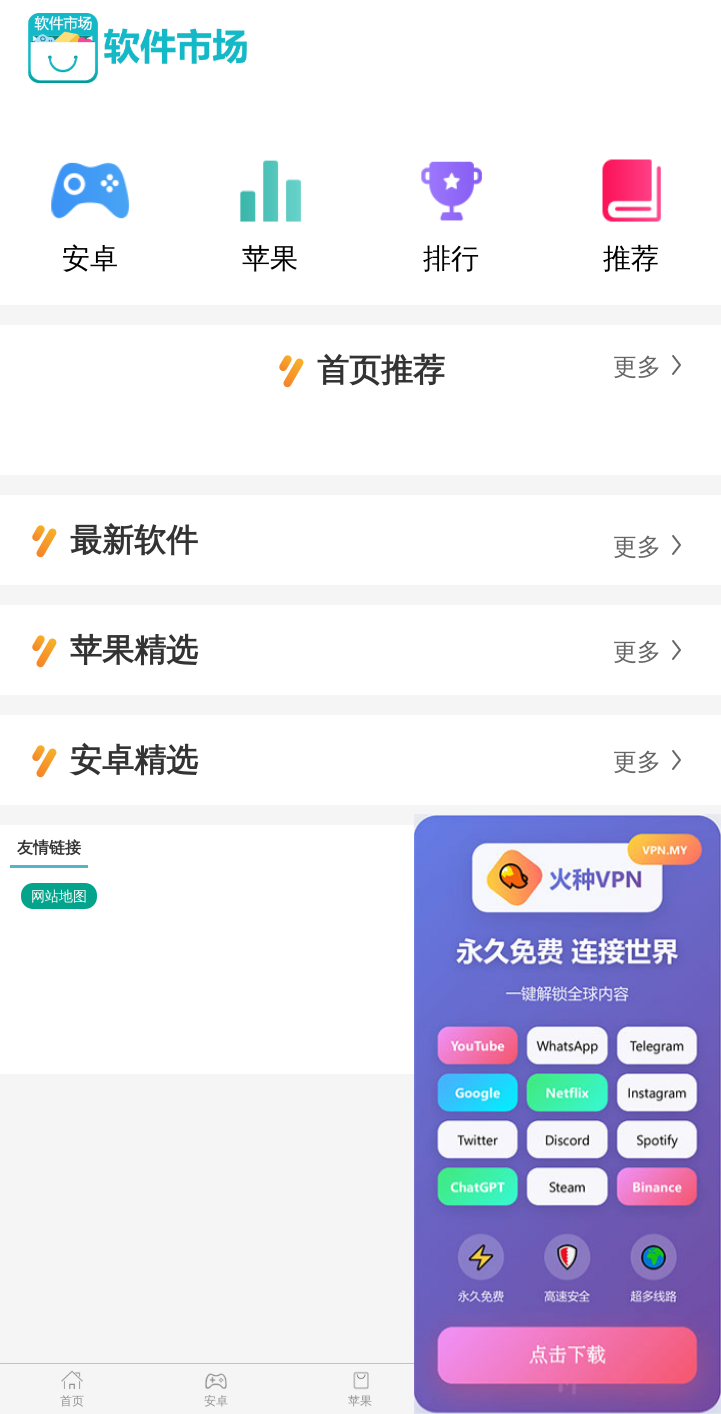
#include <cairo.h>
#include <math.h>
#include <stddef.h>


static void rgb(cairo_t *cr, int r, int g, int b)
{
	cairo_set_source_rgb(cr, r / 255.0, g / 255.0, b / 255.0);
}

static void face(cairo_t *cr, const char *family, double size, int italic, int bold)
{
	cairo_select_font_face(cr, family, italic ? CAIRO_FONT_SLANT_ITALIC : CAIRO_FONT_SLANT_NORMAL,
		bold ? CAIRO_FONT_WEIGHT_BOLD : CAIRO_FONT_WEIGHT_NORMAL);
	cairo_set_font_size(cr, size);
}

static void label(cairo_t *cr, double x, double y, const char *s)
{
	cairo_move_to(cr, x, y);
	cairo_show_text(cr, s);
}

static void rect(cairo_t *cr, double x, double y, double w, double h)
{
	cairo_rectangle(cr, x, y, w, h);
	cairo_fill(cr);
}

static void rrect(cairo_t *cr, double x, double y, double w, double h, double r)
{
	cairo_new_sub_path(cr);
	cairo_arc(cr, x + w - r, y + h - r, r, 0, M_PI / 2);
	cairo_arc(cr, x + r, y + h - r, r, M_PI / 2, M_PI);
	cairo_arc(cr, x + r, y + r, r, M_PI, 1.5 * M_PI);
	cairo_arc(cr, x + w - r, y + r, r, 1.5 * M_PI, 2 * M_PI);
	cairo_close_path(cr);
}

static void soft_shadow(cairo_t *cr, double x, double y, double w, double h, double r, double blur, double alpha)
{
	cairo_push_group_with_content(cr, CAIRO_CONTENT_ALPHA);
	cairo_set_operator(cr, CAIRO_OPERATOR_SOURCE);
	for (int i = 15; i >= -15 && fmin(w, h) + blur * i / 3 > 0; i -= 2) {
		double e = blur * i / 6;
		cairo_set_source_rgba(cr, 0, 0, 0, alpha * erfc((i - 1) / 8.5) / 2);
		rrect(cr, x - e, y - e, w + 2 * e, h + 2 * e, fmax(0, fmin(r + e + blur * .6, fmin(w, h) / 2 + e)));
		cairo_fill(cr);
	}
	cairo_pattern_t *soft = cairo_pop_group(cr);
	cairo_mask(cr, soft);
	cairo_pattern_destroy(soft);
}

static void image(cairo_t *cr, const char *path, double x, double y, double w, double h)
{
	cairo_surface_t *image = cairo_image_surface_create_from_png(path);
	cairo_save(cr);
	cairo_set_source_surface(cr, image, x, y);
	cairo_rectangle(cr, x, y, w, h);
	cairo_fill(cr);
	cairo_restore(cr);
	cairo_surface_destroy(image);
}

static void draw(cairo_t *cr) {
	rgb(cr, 245, 245, 245);
	cairo_paint(cr);
	rgb(cr, 255, 255, 255);
	rect(cr, 0, 0, 721, 305);
	image(cr, "image0.png", 28, 13, 219, 70);
	image(cr, "image1.png", 51, 162, 78, 57);
	face(cr, "WenQuanYi Zen Hei Medium", 28, 0, 0);
	rgb(cr, 0, 0, 0);
	label(cr, 62, 268, "安卓");
	image(cr, "image2.png", 240, 160, 61, 62);
	label(cr, 242, 268, "苹果");
	image(cr, "image3.png", 421, 161, 61, 60);
	label(cr, 423, 268, "排行");
	image(cr, "image4.png", 602, 159, 59, 63);
	label(cr, 603, 268, "推荐");
	rgb(cr, 255, 255, 255);
	rect(cr, 0, 325, 721, 150);
	image(cr, "image5.png", 279, 355, 25, 33);
	face(cr, "WenQuanYi Zen Hei", 32, 0, 1);
	rgb(cr, 51, 51, 51);
	label(cr, 317, 381, "首页推荐");
	face(cr, "WenQuanYi Zen Hei Medium", 24, 0, 0);
	rgb(cr, 102, 102, 102);
	label(cr, 613, 375, "更多");
	image(cr, "image6.png", 672, 355, 9, 20);
	rgb(cr, 255, 255, 255);
	rect(cr, 0, 495, 721, 90);
	image(cr, "image5.png", 32, 525, 25, 33);
	face(cr, "WenQuanYi Zen Hei", 32, 0, 1);
	rgb(cr, 51, 51, 51);
	label(cr, 70, 551, "最新软件");
	face(cr, "WenQuanYi Zen Hei Medium", 24, 0, 0);
	rgb(cr, 102, 102, 102);
	label(cr, 613, 555, "更多");
	image(cr, "image6.png", 672, 535, 9, 20);
	rgb(cr, 255, 255, 255);
	rect(cr, 0, 605, 721, 90);
	image(cr, "image5.png", 32, 635, 25, 33);
	face(cr, "WenQuanYi Zen Hei", 32, 0, 1);
	rgb(cr, 51, 51, 51);
	label(cr, 70, 661, "苹果精选");
	face(cr, "WenQuanYi Zen Hei Medium", 24, 0, 0);
	rgb(cr, 102, 102, 102);
	label(cr, 613, 660, "更多");
	image(cr, "image6.png", 672, 640, 9, 20);
	rgb(cr, 255, 255, 255);
	rect(cr, 0, 715, 721, 90);
	image(cr, "image5.png", 32, 745, 25, 33);
	face(cr, "WenQuanYi Zen Hei", 32, 0, 1);
	rgb(cr, 51, 51, 51);
	label(cr, 70, 771, "安卓精选");
	face(cr, "WenQuanYi Zen Hei Medium", 24, 0, 0);
	rgb(cr, 102, 102, 102);
	label(cr, 613, 770, "更多");
	image(cr, "image6.png", 672, 750, 9, 20);
	rgb(cr, 255, 255, 255);
	rect(cr, 0, 825, 721, 249);
	rgb(cr, 83, 182, 197);
	rect(cr, 10, 865, 78, 3);
	face(cr, "WenQuanYi Zen Hei", 16, 0, 1);
	rgb(cr, 51, 51, 51);
	label(cr, 17, 853, "友情链接");
	rgb(cr, 3, 164, 139);
	rrect(cr, 21, 883, 76, 26, 12);
	cairo_fill(cr);
	face(cr, "WenQuanYi Zen Hei Medium", 14, 0, 0);
	rgb(cr, 255, 255, 255);
	label(cr, 31, 901, "网站地图");
	rgb(cr, 0, 0, 0);
	soft_shadow(cr, 0, 1364, 721, 50, 0, 0.5, 0.85);
	rgb(cr, 245, 245, 245);
	rect(cr, 0, 1364, 721, 50);
	image(cr, "image7.png", 414, 814, 307, 600);
	image(cr, "image8.png", 61, 1370, 22, 19);
	face(cr, "WenQuanYi Zen Hei Medium", 12, 0, 0);
	rgb(cr, 146, 146, 146);
	label(cr, 60, 1405, "首页");
	image(cr, "image9.png", 205, 1373, 22, 16);
	label(cr, 204, 1405, "安卓");
	image(cr, "image10.png", 353, 1371, 16, 19);
	label(cr, 348, 1405, "苹果");
}

int main(void) {
	cairo_surface_t *surface = cairo_image_surface_create(CAIRO_FORMAT_RGB24, 721, 1414);
	cairo_t *cr = cairo_create(surface);
	cairo_font_options_t *options = cairo_font_options_create();
	cairo_font_options_set_hint_metrics(options, CAIRO_HINT_METRICS_OFF);
	cairo_font_options_set_hint_style(options, CAIRO_HINT_STYLE_NONE);
	cairo_set_font_options(cr, options);
	cairo_set_miter_limit(cr, 4);
	draw(cr);
	cairo_surface_write_to_png(surface, "render.png");
	cairo_font_options_destroy(options);
	cairo_destroy(cr);
	cairo_surface_destroy(surface);
	return 0;
}
